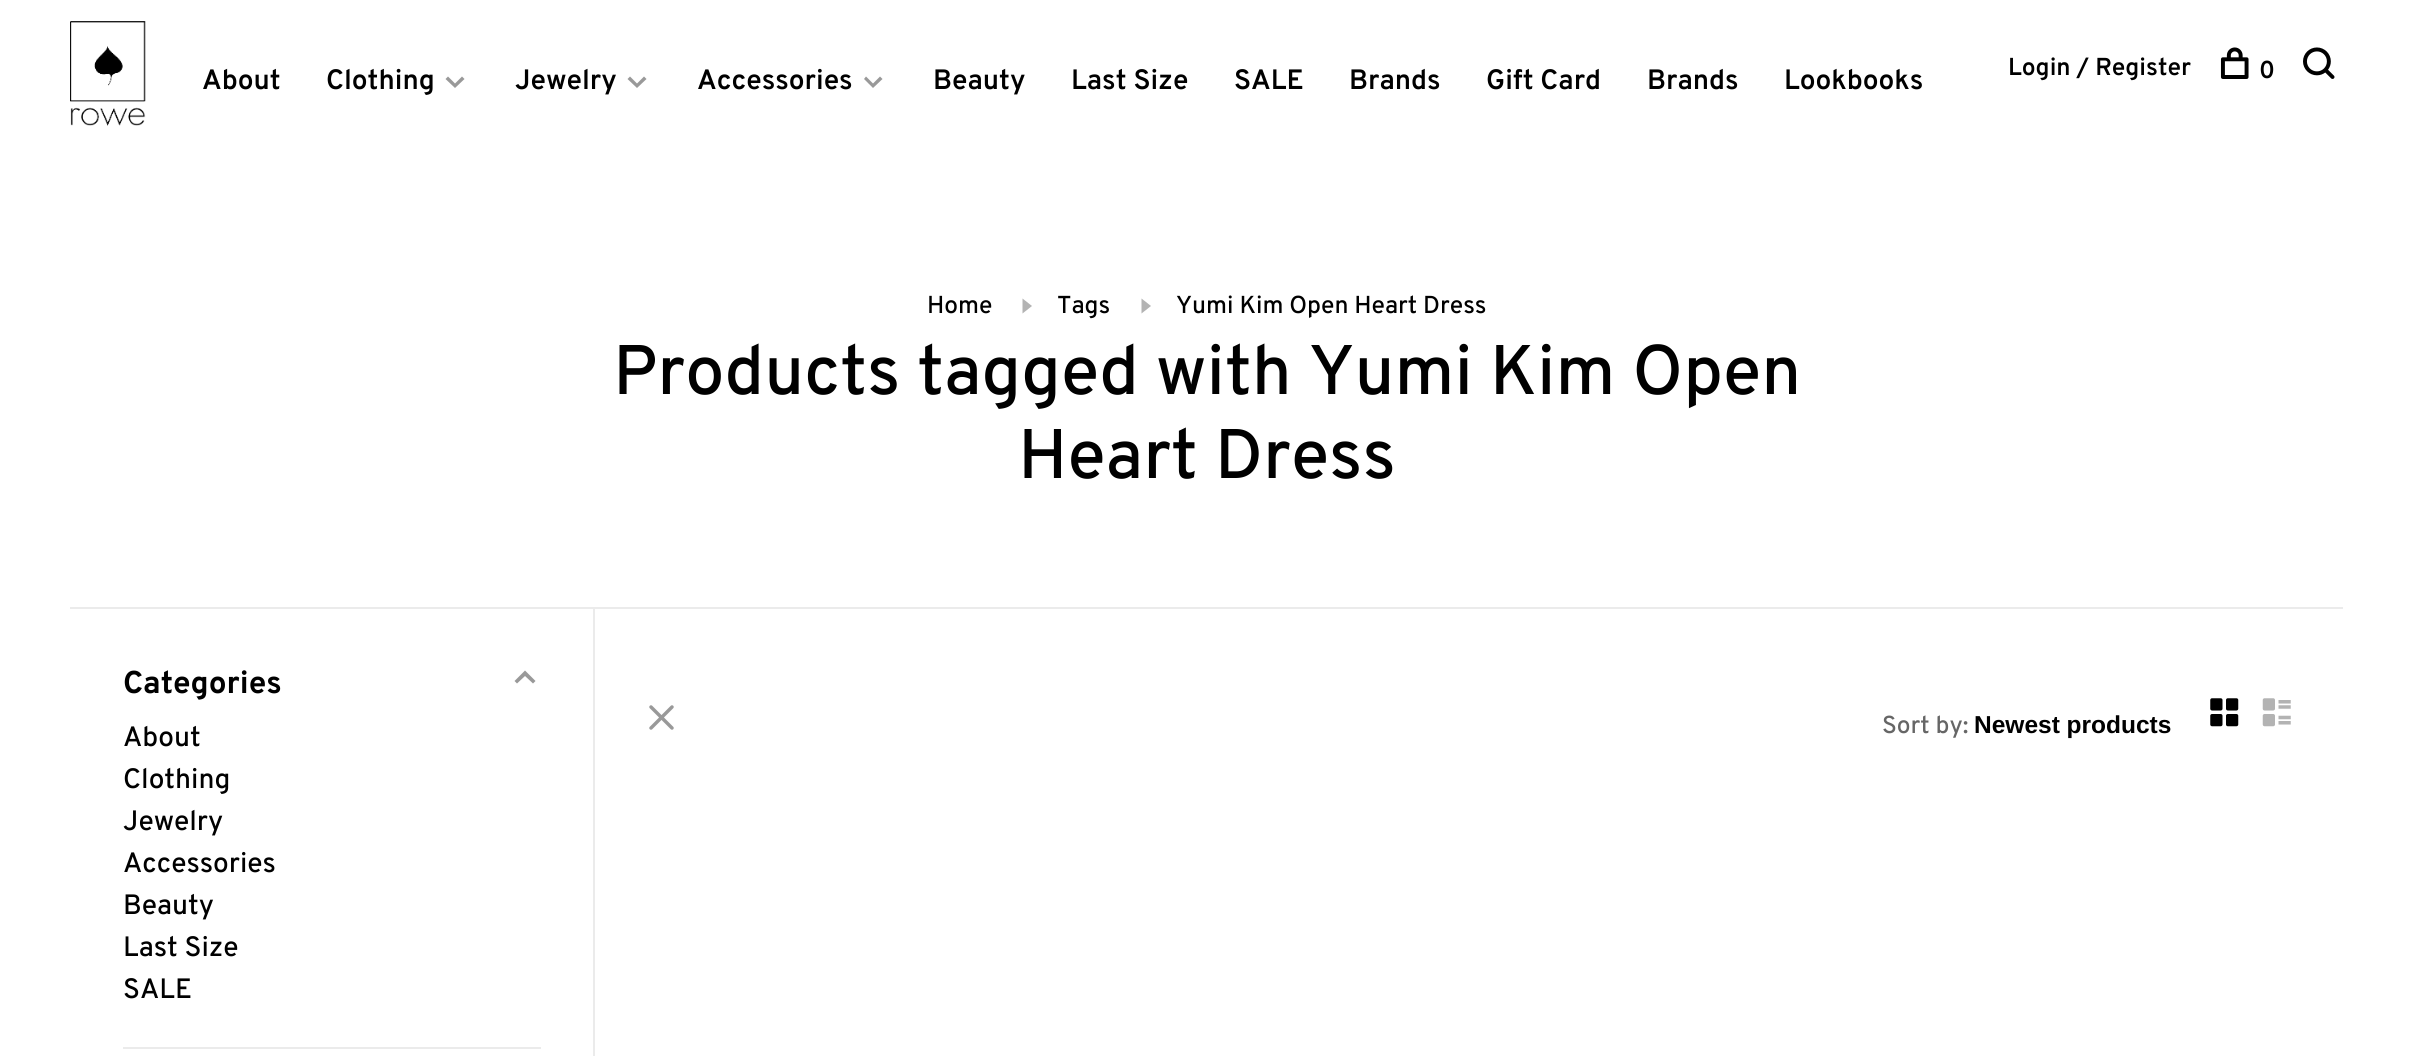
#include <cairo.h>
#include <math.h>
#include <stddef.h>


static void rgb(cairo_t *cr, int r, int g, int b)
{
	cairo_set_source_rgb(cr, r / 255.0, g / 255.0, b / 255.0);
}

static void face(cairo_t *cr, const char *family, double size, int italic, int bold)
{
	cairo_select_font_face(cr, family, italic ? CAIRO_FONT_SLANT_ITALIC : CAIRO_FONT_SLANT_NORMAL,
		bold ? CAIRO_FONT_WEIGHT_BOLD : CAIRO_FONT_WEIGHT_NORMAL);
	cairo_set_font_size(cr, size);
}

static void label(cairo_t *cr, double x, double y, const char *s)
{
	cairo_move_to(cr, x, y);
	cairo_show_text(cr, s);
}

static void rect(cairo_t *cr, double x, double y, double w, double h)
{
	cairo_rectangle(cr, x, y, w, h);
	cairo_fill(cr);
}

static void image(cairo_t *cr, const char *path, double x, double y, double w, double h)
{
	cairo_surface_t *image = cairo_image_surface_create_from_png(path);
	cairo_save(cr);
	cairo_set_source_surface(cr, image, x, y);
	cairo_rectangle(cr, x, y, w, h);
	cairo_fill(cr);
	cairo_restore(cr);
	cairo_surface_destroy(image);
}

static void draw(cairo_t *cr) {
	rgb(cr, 255, 255, 255);
	cairo_paint(cr);
	image(cr, "image0.png", 70, 21, 76, 105);
	face(cr, "Overpass SemiBold", 28, 0, 0);
	rgb(cr, 0, 0, 0);
	label(cr, 202, 89, "About");
	label(cr, 326, 89, "Clothing");
	rgb(cr, 153, 153, 153);
	cairo_new_path(cr);
	cairo_move_to(cr, 455, 88);
	cairo_line_to(cr, 445.5, 79);
	cairo_line_to(cr, 448, 76.5);
	cairo_line_to(cr, 455, 83.5);
	cairo_line_to(cr, 462, 76.5);
	cairo_line_to(cr, 464.5, 79);
	cairo_close_path(cr);
	cairo_fill(cr);
	rgb(cr, 0, 0, 0);
	label(cr, 515, 89, "Jewelry");
	rgb(cr, 153, 153, 153);
	cairo_new_path(cr);
	cairo_move_to(cr, 637, 88);
	cairo_line_to(cr, 627.5, 79);
	cairo_line_to(cr, 630, 76.5);
	cairo_line_to(cr, 637, 83.5);
	cairo_line_to(cr, 644, 76.5);
	cairo_line_to(cr, 646.5, 79);
	cairo_close_path(cr);
	cairo_fill(cr);
	rgb(cr, 0, 0, 0);
	label(cr, 697, 89, "Accessories");
	rgb(cr, 153, 153, 153);
	cairo_new_path(cr);
	cairo_move_to(cr, 873, 88);
	cairo_line_to(cr, 864, 79);
	cairo_line_to(cr, 866, 76.5);
	cairo_line_to(cr, 873, 83.5);
	cairo_line_to(cr, 880, 76.5);
	cairo_line_to(cr, 882.5, 79);
	cairo_close_path(cr);
	cairo_fill(cr);
	rgb(cr, 0, 0, 0);
	label(cr, 933, 89, "Beauty");
	label(cr, 1071, 89, "Last Size");
	label(cr, 1234, 89, "SALE");
	label(cr, 1349, 89, "Brands");
	label(cr, 1486, 89, "Gift Card");
	label(cr, 1647, 89, "Brands");
	label(cr, 1784, 89, "Lookbooks");
	face(cr, "Overpass SemiBold", 24.5, 0, 0);
	label(cr, 2008, 75, "Login / Register");
	image(cr, "image1.png", 2220, 47, 29, 32);
	label(cr, 2259, 78, "0");
	image(cr, "image2.png", 2303, 47, 32, 32);
	face(cr, "Overpass Medium", 24.5, 0, 0);
	label(cr, 927, 313, "Home");
	rgb(cr, 179, 179, 179);
	cairo_new_path(cr);
	cairo_move_to(cr, 1022.5, 313.5);
	cairo_line_to(cr, 1032, 306);
	cairo_line_to(cr, 1022.5, 298.5);
	cairo_close_path(cr);
	cairo_fill(cr);
	rgb(cr, 0, 0, 0);
	label(cr, 1057, 313, "Tags");
	rgb(cr, 179, 179, 179);
	cairo_new_path(cr);
	cairo_move_to(cr, 1141.5, 313.5);
	cairo_line_to(cr, 1151, 306);
	cairo_line_to(cr, 1141.5, 298.5);
	cairo_close_path(cr);
	cairo_fill(cr);
	rgb(cr, 0, 0, 0);
	label(cr, 1176, 313, "Yumi Kim Open Heart Dress");
	face(cr, "Overpass Medium", 70, 0, 0);
	label(cr, 613, 394, "Products tagged with Yumi Kim Open");
	label(cr, 1018, 478, "Heart Dress");
	rgb(cr, 235, 235, 235);
	rect(cr, 70, 607, 2273, 2);
	rect(cr, 593, 609, 2, 447);
	rect(cr, 123, 1047, 418, 2);
	face(cr, "Overpass", 31.5, 0, 1);
	rgb(cr, 0, 0, 0);
	label(cr, 123, 693, "Categories");
	rgb(cr, 153, 153, 153);
	cairo_new_path(cr);
	cairo_move_to(cr, 525, 670.5);
	cairo_line_to(cr, 535.5, 681);
	cairo_line_to(cr, 533, 683.5);
	cairo_line_to(cr, 525, 676);
	cairo_line_to(cr, 517, 683.5);
	cairo_line_to(cr, 514.5, 681);
	cairo_close_path(cr);
	cairo_fill(cr);
	face(cr, "Overpass Medium", 28, 0, 0);
	rgb(cr, 0, 0, 0);
	label(cr, 123, 746, "About");
	label(cr, 123, 788, "Clothing");
	label(cr, 123, 830, "Jewelry");
	label(cr, 123, 872, "Accessories");
	label(cr, 123, 914, "Beauty");
	label(cr, 123, 956, "Last Size");
	label(cr, 123, 998, "SALE");
	image(cr, "image3.png", 649, 705, 25, 25);
	face(cr, "Overpass Medium", 24.5, 0, 0);
	rgb(cr, 102, 102, 102);
	label(cr, 1882, 733, "Sort by:");
	face(cr, "Liberation Sans", 24.5, 0, 1);
	rgb(cr, 0, 0, 0);
	label(cr, 1974, 733, "Newest products");
	image(cr, "image4.png", 2210, 698, 29, 29);
	image(cr, "image5.png", 2262, 698, 29, 29);
}

int main(void) {
	cairo_surface_t *surface = cairo_image_surface_create(CAIRO_FORMAT_RGB24, 2413, 1056);
	cairo_t *cr = cairo_create(surface);
	cairo_font_options_t *options = cairo_font_options_create();
	cairo_font_options_set_hint_metrics(options, CAIRO_HINT_METRICS_OFF);
	cairo_font_options_set_hint_style(options, CAIRO_HINT_STYLE_NONE);
	cairo_set_font_options(cr, options);
	cairo_set_miter_limit(cr, 4);
	draw(cr);
	cairo_surface_write_to_png(surface, "render.png");
	cairo_font_options_destroy(options);
	cairo_destroy(cr);
	cairo_surface_destroy(surface);
	return 0;
}
